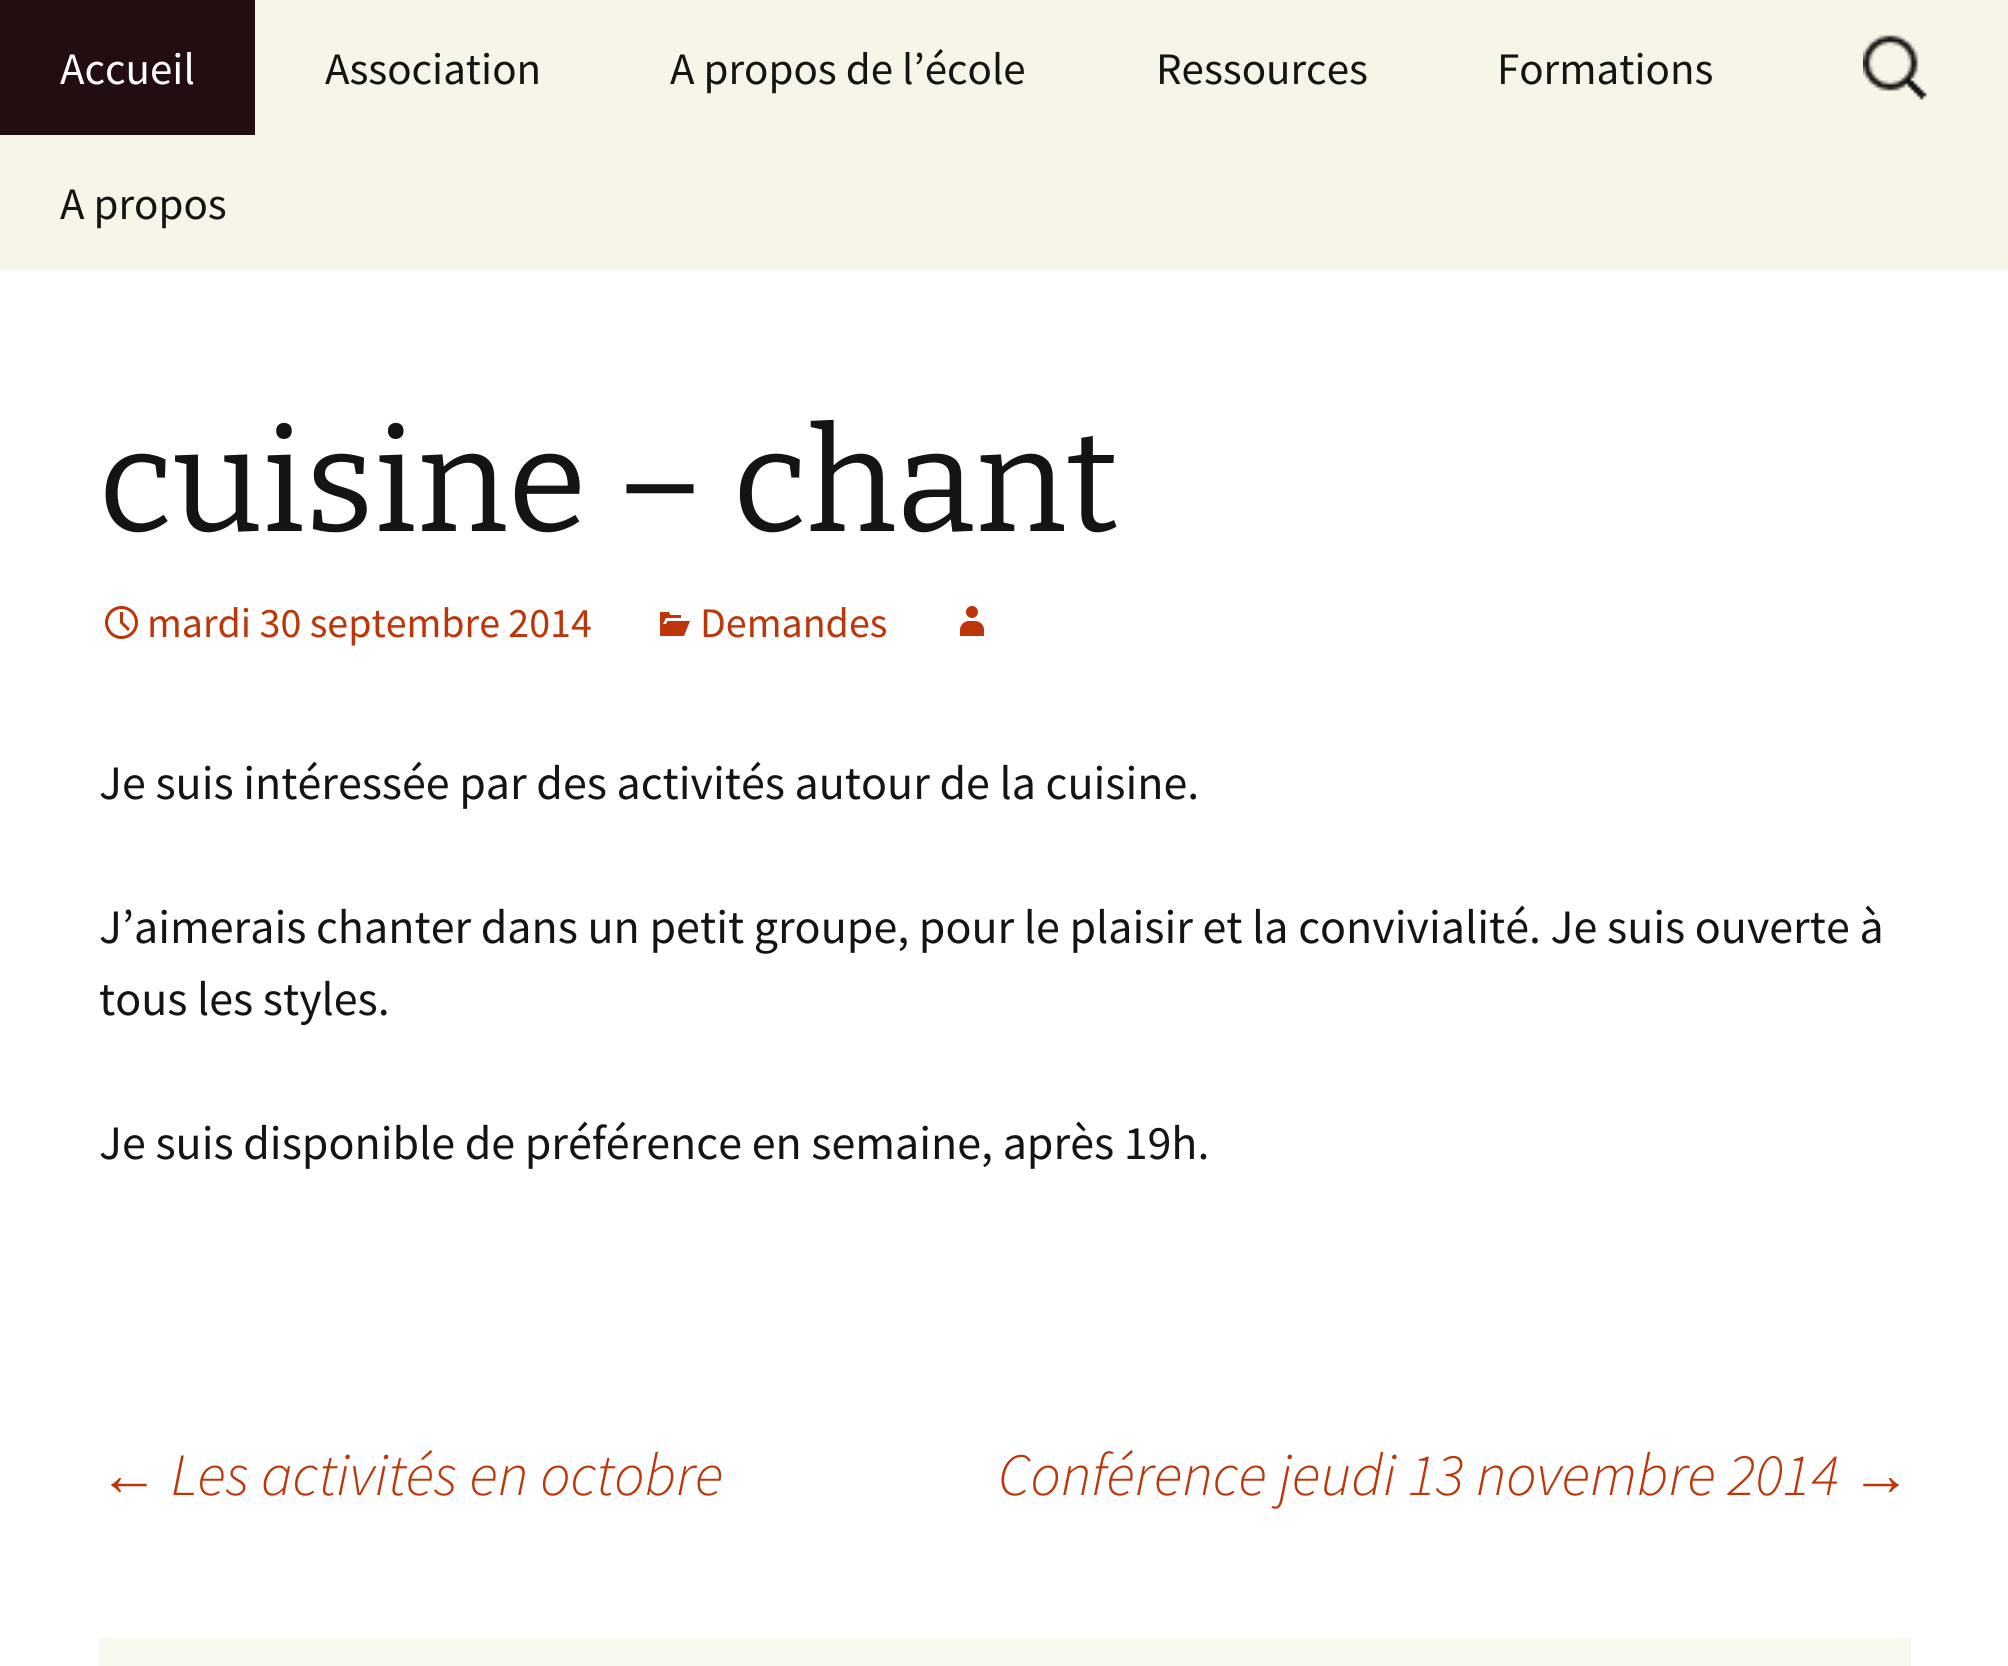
#include <cairo.h>
#include <math.h>
#include <stddef.h>


static void rgb(cairo_t *cr, int r, int g, int b)
{
	cairo_set_source_rgb(cr, r / 255.0, g / 255.0, b / 255.0);
}

static void face(cairo_t *cr, const char *family, double size, int italic, int bold)
{
	cairo_select_font_face(cr, family, italic ? CAIRO_FONT_SLANT_ITALIC : CAIRO_FONT_SLANT_NORMAL,
		bold ? CAIRO_FONT_WEIGHT_BOLD : CAIRO_FONT_WEIGHT_NORMAL);
	cairo_set_font_size(cr, size);
}

static void label(cairo_t *cr, double x, double y, const char *s)
{
	cairo_move_to(cr, x, y);
	cairo_show_text(cr, s);
}

static void rect(cairo_t *cr, double x, double y, double w, double h)
{
	cairo_rectangle(cr, x, y, w, h);
	cairo_fill(cr);
}

static void image(cairo_t *cr, const char *path, double x, double y, double w, double h)
{
	cairo_surface_t *image = cairo_image_surface_create_from_png(path);
	cairo_save(cr);
	cairo_set_source_surface(cr, image, x, y);
	cairo_rectangle(cr, x, y, w, h);
	cairo_fill(cr);
	cairo_restore(cr);
	cairo_surface_destroy(image);
}

static void draw(cairo_t *cr) {
	rgb(cr, 255, 255, 255);
	cairo_paint(cr);
	rgb(cr, 247, 245, 231);
	rect(cr, 0, 0, 2008, 270);
	rgb(cr, 34, 14, 16);
	rect(cr, 0, 0, 255, 135);
	face(cr, "Source Sans Pro", 45, 0, 0);
	rgb(cr, 255, 255, 255);
	label(cr, 60, 84, "Accueil");
	rgb(cr, 20, 20, 18);
	label(cr, 325, 84, "Association");
	label(cr, 670, 84, "A propos de l’école");
	label(cr, 1156, 84, "Ressources");
	label(cr, 1497, 84, "Formations");
	label(cr, 60, 219, "A propos");
	image(cr, "image0.png", 1863, 35, 64, 65);
	face(cr, "Bitter Thin", 144, 0, 0);
	label(cr, 99, 531, "cuisine – chant");
	image(cr, "image1.png", 105, 606, 33, 33);
	face(cr, "Source Sans Pro", 42, 0, 0);
	rgb(cr, 188, 54, 10);
	label(cr, 147, 637, "mardi 30 septembre 2014");
	image(cr, "image2.png", 660, 612, 30, 24);
	label(cr, 700, 637, "Demandes");
	image(cr, "image3.png", 960, 606, 24, 30);
	face(cr, "Source Sans Pro", 48, 0, 0);
	rgb(cr, 20, 20, 18);
	label(cr, 99, 799, "Je suis intéressée par des activités autour de la cuisine.");
	label(cr, 99, 943, "J’aimerais chanter dans un petit groupe, pour le plaisir et la convivialité. Je suis ouverte à");
	label(cr, 99, 1015, "tous les styles.");
	label(cr, 99, 1159, "Je suis disponible de préférence en semaine, après 19h.");
	face(cr, "Liberation Sans", 60, 1, 0);
	rgb(cr, 188, 54, 10);
	label(cr, 99, 1495, "←");
	face(cr, "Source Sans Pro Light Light", 60, 1, 0);
	label(cr, 171, 1495, "Les activités en octobre");
	label(cr, 998, 1495, "Conférence jeudi 13 novembre 2014");
	face(cr, "Liberation Sans", 60, 1, 0);
	label(cr, 1851, 1495, "→");
	rgb(cr, 249, 248, 238);
	rect(cr, 99, 1638, 1812, 28);
}

int main(void) {
	cairo_surface_t *surface = cairo_image_surface_create(CAIRO_FORMAT_RGB24, 2008, 1666);
	cairo_t *cr = cairo_create(surface);
	cairo_font_options_t *options = cairo_font_options_create();
	cairo_font_options_set_hint_metrics(options, CAIRO_HINT_METRICS_OFF);
	cairo_font_options_set_hint_style(options, CAIRO_HINT_STYLE_NONE);
	cairo_set_font_options(cr, options);
	cairo_set_miter_limit(cr, 4);
	draw(cr);
	cairo_surface_write_to_png(surface, "render.png");
	cairo_font_options_destroy(options);
	cairo_destroy(cr);
	cairo_surface_destroy(surface);
	return 0;
}
